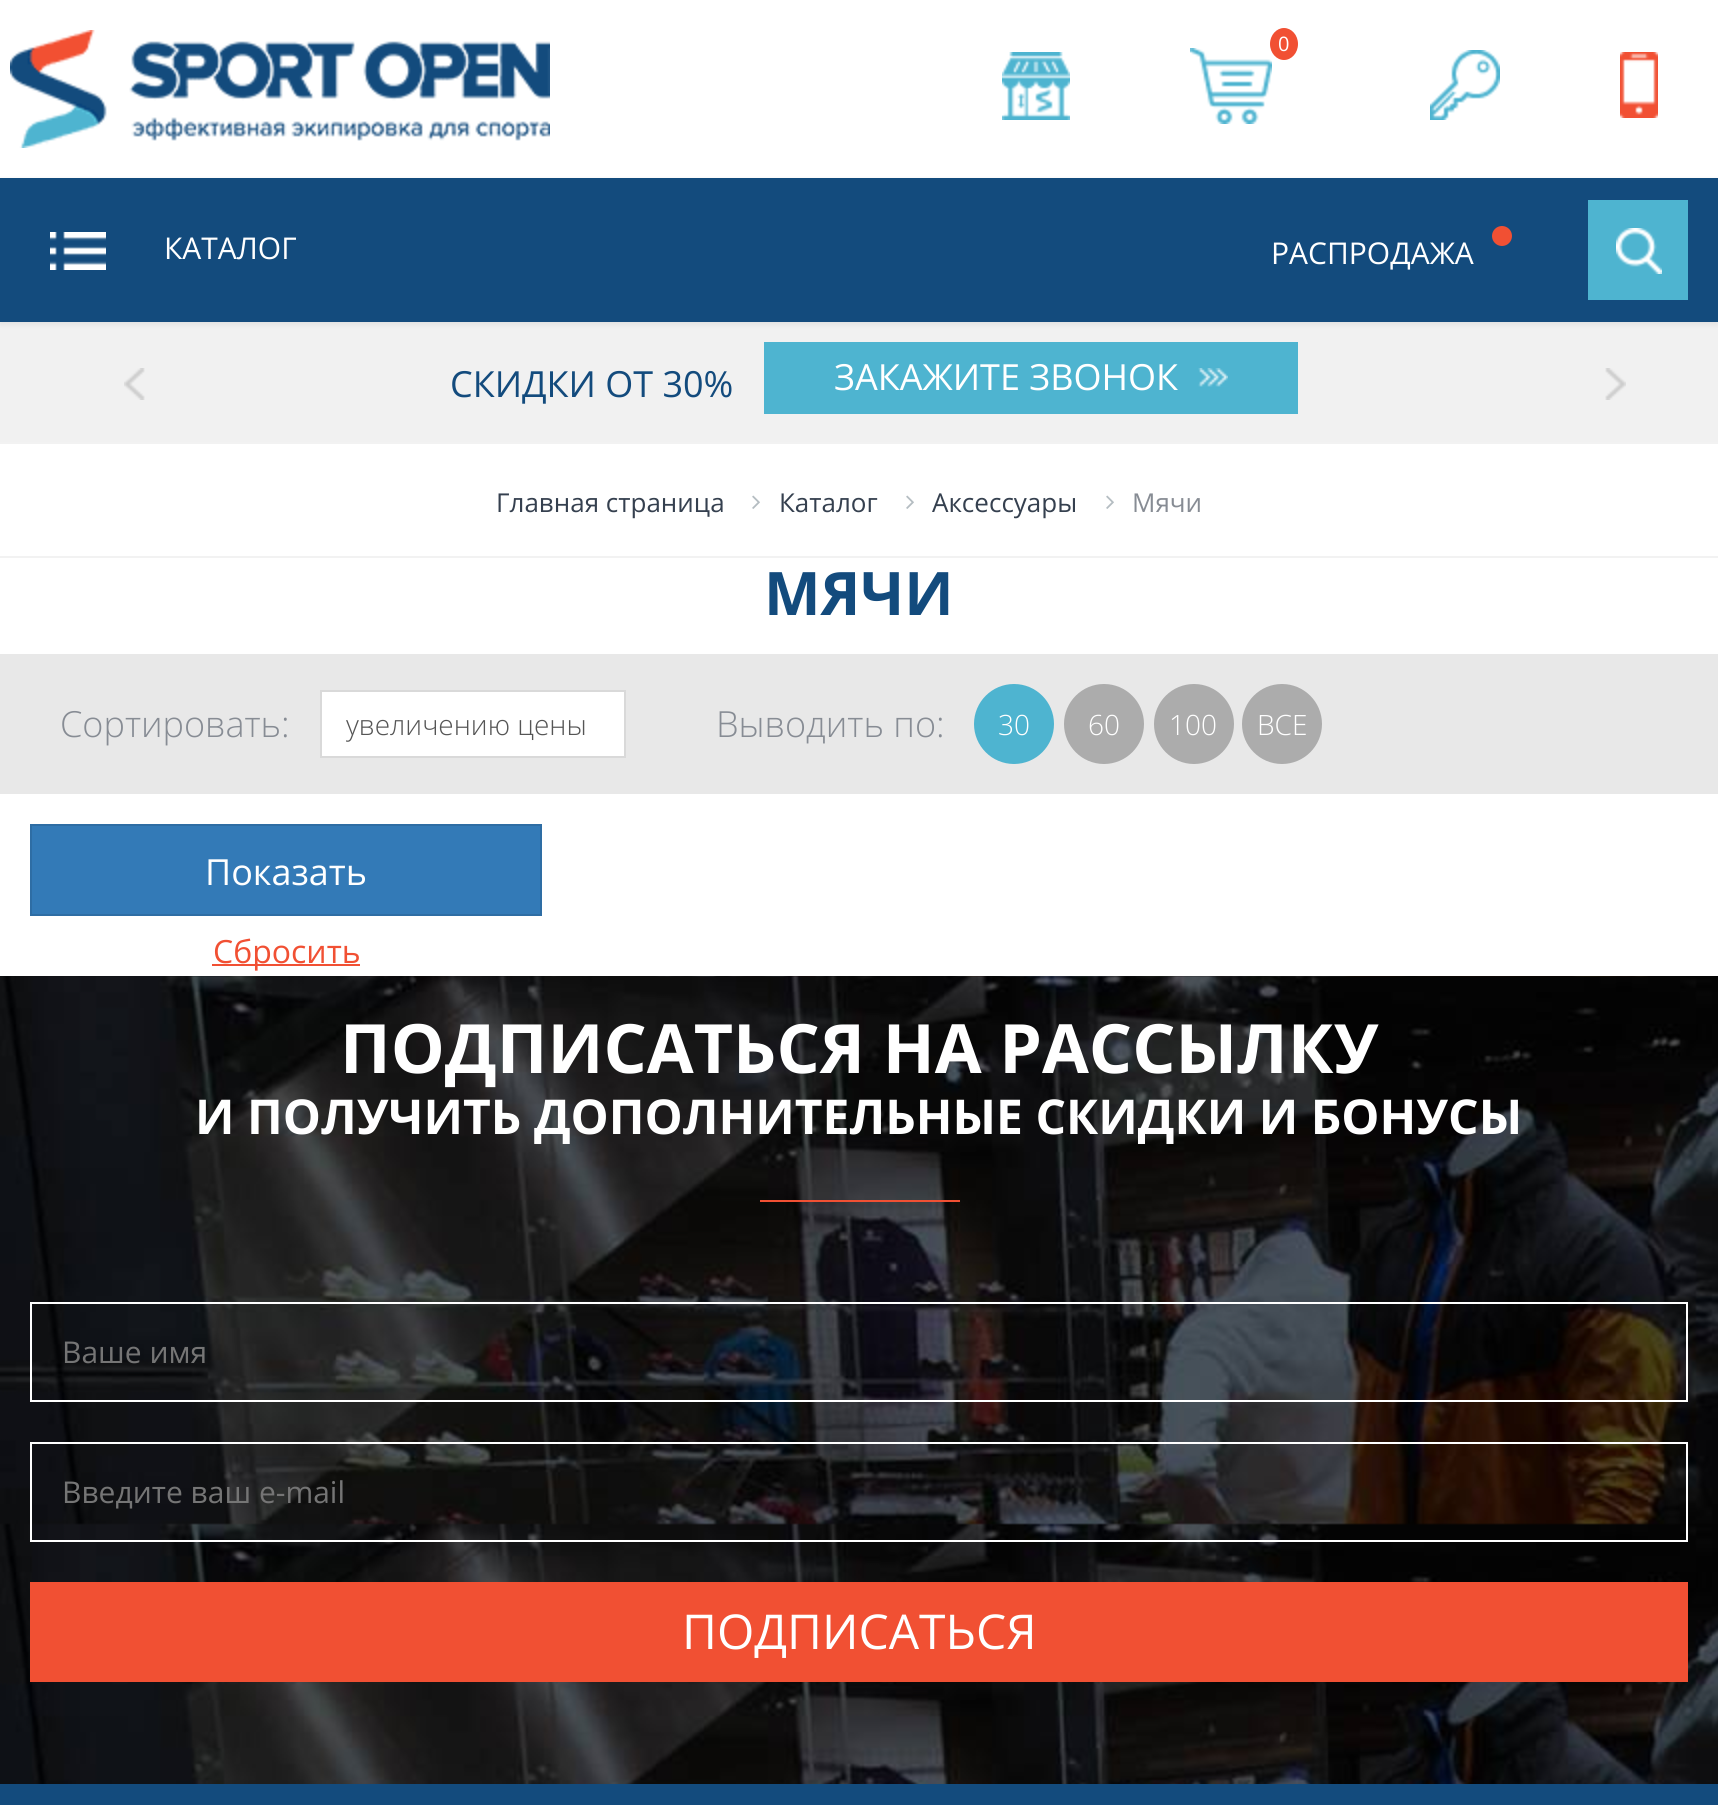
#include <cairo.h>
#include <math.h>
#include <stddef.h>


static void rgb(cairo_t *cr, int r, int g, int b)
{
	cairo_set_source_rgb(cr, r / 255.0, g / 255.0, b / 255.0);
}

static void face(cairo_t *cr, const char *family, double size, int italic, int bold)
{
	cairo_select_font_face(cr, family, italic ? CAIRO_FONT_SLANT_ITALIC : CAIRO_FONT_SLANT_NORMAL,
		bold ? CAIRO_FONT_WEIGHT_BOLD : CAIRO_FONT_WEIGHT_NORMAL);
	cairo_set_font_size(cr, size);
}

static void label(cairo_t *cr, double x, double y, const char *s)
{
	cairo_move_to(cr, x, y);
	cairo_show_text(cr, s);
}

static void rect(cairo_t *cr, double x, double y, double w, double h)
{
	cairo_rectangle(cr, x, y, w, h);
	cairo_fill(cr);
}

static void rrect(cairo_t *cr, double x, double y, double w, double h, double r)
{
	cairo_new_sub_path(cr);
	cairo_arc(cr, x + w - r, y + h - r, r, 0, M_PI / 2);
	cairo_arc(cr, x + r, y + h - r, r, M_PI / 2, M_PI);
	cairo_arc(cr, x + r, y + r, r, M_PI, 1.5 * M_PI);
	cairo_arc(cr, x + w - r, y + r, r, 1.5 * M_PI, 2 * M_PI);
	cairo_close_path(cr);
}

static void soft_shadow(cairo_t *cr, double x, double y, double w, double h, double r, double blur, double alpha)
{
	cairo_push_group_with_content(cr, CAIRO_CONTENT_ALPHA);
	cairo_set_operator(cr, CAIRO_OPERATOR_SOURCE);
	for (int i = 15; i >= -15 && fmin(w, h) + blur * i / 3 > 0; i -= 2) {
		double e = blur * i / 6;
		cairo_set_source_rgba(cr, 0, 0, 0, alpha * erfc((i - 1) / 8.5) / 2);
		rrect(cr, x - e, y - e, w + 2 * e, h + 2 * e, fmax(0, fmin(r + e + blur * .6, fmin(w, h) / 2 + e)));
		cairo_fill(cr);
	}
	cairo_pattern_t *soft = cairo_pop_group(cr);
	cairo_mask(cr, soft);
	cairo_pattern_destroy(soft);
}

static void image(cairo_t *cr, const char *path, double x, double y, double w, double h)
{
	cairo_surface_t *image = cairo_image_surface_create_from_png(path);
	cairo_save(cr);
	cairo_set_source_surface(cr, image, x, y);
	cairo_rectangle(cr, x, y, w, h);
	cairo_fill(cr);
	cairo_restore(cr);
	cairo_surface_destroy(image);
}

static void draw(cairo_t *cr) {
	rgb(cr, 255, 255, 255);
	cairo_paint(cr);
	image(cr, "image0.png", 10, 30, 540, 118);
	image(cr, "image1.png", 1190, 48, 82, 76);
	rgb(cr, 241, 80, 51);
	cairo_new_path(cr);
	cairo_move_to(cr, 1284, 28);
	cairo_curve_to(cr, 1291.5, 28, 1298, 35, 1298, 44);
	cairo_curve_to(cr, 1298, 53, 1291.5, 60, 1284, 60);
	cairo_curve_to(cr, 1276.5, 60, 1270, 53, 1270, 44);
	cairo_curve_to(cr, 1270, 35, 1276.5, 28, 1284, 28);
	cairo_close_path(cr);
	cairo_fill(cr);
	face(cr, "Open Sans", 20, 0, 0);
	rgb(cr, 255, 255, 255);
	label(cr, 1278, 51, "0");
	image(cr, "image2.png", 1002, 52, 68, 68);
	image(cr, "image3.png", 1430, 50, 70, 70);
	image(cr, "image4.png", 1620, 52, 38, 66);
	rgb(cr, 241, 241, 241);
	rect(cr, 0, 322, 1718, 120);
	rgb(cr, 0, 0, 0);
	soft_shadow(cr, 0, 180, 1718, 144, 0, 3, 0.08);
	rgb(cr, 19, 75, 125);
	rect(cr, 0, 178, 1718, 144);
	image(cr, "image5.png", 50, 232, 56, 38);
	face(cr, "Open Sans", 30, 0, 0);
	rgb(cr, 255, 255, 255);
	label(cr, 164, 259, "КАТАЛОГ");
	rgb(cr, 241, 80, 51);
	cairo_new_path(cr);
	cairo_arc(cr, 1502, 236, 10, 0, 2 * M_PI);
	cairo_fill(cr);
	rgb(cr, 255, 255, 255);
	label(cr, 1271, 264, "РАСПРОДАЖА");
	rgb(cr, 78, 180, 208);
	rect(cr, 1588, 200, 100, 100);
	image(cr, "image6.png", 1616, 228, 46, 46);
	face(cr, "Open Sans", 36, 0, 0);
	rgb(cr, 19, 75, 125);
	label(cr, 450, 397, "CКИДКИ ОТ 30%");
	rgb(cr, 78, 180, 208);
	rect(cr, 764, 342, 534, 72);
	rgb(cr, 255, 255, 255);
	label(cr, 834, 390, "ЗАКАЖИТЕ ЗВОНОК");
	image(cr, "image7.png", 1198, 368, 30, 19);
	image(cr, "image8.png", 124, 368, 21, 32);
	image(cr, "image9.png", 1605, 368, 21, 32);
	rgb(cr, 242, 242, 242);
	rect(cr, 0, 442, 1718, 2);
	rect(cr, 0, 556, 1718, 2);
	face(cr, "Open Sans", 26, 0, 0);
	rgb(cr, 53, 64, 79);
	label(cr, 496, 512, "Главная страница");
	image(cr, "image10.png", 752, 495, 8, 14);
	label(cr, 779, 512, "Каталог");
	image(cr, "image10.png", 906, 495, 8, 14);
	label(cr, 932, 512, "Аксессуары");
	image(cr, "image10.png", 1106, 495, 8, 14);
	rgb(cr, 135, 140, 148);
	label(cr, 1132, 512, "Мячи");
	face(cr, "Open Sans", 60, 0, 1);
	rgb(cr, 19, 75, 125);
	label(cr, 764, 615, "МЯЧИ");
	rgb(cr, 232, 232, 232);
	rect(cr, 0, 654, 1718, 140);
	face(cr, "Open Sans Light", 36, 0, 0);
	rgb(cr, 135, 140, 148);
	label(cr, 60, 737, "Сортировать:");
	rgb(cr, 255, 255, 255);
	cairo_rectangle(cr, 321, 691, 304, 66);
	cairo_fill_preserve(cr);
	rgb(cr, 217, 217, 217);
	cairo_stroke(cr);
	cairo_save(cr);
	cairo_rectangle(cr, 346, 704, 254, 40);
	cairo_clip(cr);
	face(cr, "Open Sans Light", 28, 0, 0);
	rgb(cr, 85, 85, 85);
	label(cr, 346, 735, "увеличению цены");
	cairo_restore(cr);
	rgb(cr, 135, 140, 148);
	label(cr, 716, 737, "Выводить по:");
	rgb(cr, 78, 180, 208);
	cairo_new_path(cr);
	cairo_arc(cr, 1014, 724, 40, 0, 2 * M_PI);
	cairo_fill(cr);
	face(cr, "Open Sans Light", 28, 0, 0);
	rgb(cr, 255, 255, 255);
	label(cr, 998, 735, "30");
	rgb(cr, 172, 172, 172);
	cairo_new_path(cr);
	cairo_arc(cr, 1104, 724, 40, 0, 2 * M_PI);
	cairo_fill(cr);
	rgb(cr, 255, 255, 255);
	label(cr, 1088, 735, "60");
	rgb(cr, 172, 172, 172);
	cairo_new_path(cr);
	cairo_arc(cr, 1194, 724, 40, 0, 2 * M_PI);
	cairo_fill(cr);
	rgb(cr, 255, 255, 255);
	label(cr, 1169, 735, "100");
	rgb(cr, 172, 172, 172);
	cairo_new_path(cr);
	cairo_arc(cr, 1282, 724, 40, 0, 2 * M_PI);
	cairo_fill(cr);
	rgb(cr, 255, 255, 255);
	label(cr, 1257, 735, "ВСЕ");
	rgb(cr, 51, 122, 183);
	cairo_rectangle(cr, 31, 825, 510, 90);
	cairo_fill_preserve(cr);
	rgb(cr, 46, 109, 164);
	cairo_stroke(cr);
	face(cr, "Open Sans", 36, 0, 0);
	rgb(cr, 255, 255, 255);
	label(cr, 205, 885, "Показать");
	rgb(cr, 241, 80, 51);
	rect(cr, 212, 964, 148, 2);
	face(cr, "Open Sans", 32, 0, 0);
	label(cr, 213, 963, "Сбросить");
	image(cr, "image11.png", 0, 976, 1718, 808);
	face(cr, "Open Sans", 68, 0, 1);
	rgb(cr, 255, 255, 255);
	label(cr, 340, 1073, "ПОДПИСАТЬСЯ НА РАССЫЛКУ");
	face(cr, "Open Sans", 48, 0, 1);
	label(cr, 195, 1134, "И ПОЛУЧИТЬ ДОПОЛНИТЕЛЬНЫЕ СКИДКИ И БОНУСЫ");
	rgb(cr, 241, 80, 51);
	rect(cr, 760, 1200, 200, 2);
	cairo_rectangle(cr, 31, 1303, 1656, 98);
	rgb(cr, 255, 255, 255);
	cairo_stroke(cr);
	face(cr, "Open Sans", 30, 0, 0);
	rgb(cr, 117, 117, 117);
	label(cr, 62, 1363, "Ваше имя");
	cairo_rectangle(cr, 31, 1443, 1656, 98);
	rgb(cr, 255, 255, 255);
	cairo_stroke(cr);
	rgb(cr, 117, 117, 117);
	label(cr, 62, 1503, "Введите ваш e-mail");
	rgb(cr, 241, 80, 51);
	rect(cr, 30, 1582, 1658, 100);
	face(cr, "Open Sans", 48, 0, 0);
	rgb(cr, 255, 255, 255);
	label(cr, 682, 1649, "ПОДПИСАТЬСЯ");
	rgb(cr, 19, 75, 125);
	rect(cr, 0, 1784, 1718, 21);
}

int main(void) {
	cairo_surface_t *surface = cairo_image_surface_create(CAIRO_FORMAT_RGB24, 1718, 1805);
	cairo_t *cr = cairo_create(surface);
	cairo_font_options_t *options = cairo_font_options_create();
	cairo_font_options_set_hint_metrics(options, CAIRO_HINT_METRICS_OFF);
	cairo_font_options_set_hint_style(options, CAIRO_HINT_STYLE_NONE);
	cairo_set_font_options(cr, options);
	cairo_set_miter_limit(cr, 4);
	draw(cr);
	cairo_surface_write_to_png(surface, "render.png");
	cairo_font_options_destroy(options);
	cairo_destroy(cr);
	cairo_surface_destroy(surface);
	return 0;
}
